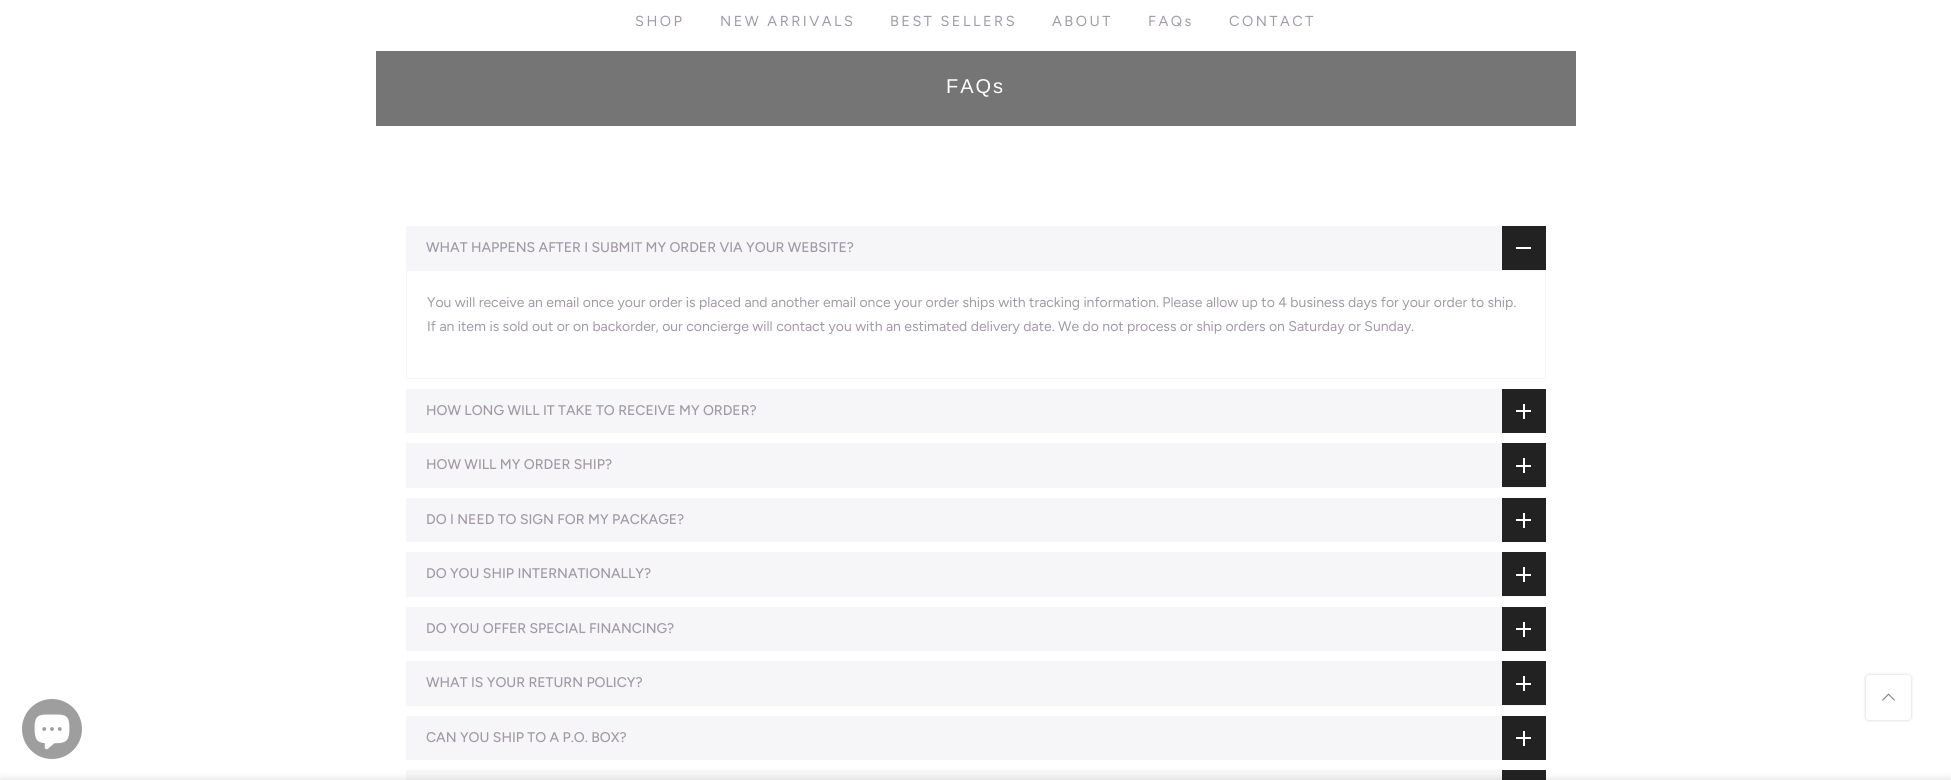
#include <cairo.h>
#include <math.h>
#include <stddef.h>


static void rgb(cairo_t *cr, int r, int g, int b)
{
	cairo_set_source_rgb(cr, r / 255.0, g / 255.0, b / 255.0);
}

static void face(cairo_t *cr, const char *family, double size, int italic, int bold)
{
	cairo_select_font_face(cr, family, italic ? CAIRO_FONT_SLANT_ITALIC : CAIRO_FONT_SLANT_NORMAL,
		bold ? CAIRO_FONT_WEIGHT_BOLD : CAIRO_FONT_WEIGHT_NORMAL);
	cairo_set_font_size(cr, size);
}

static void label(cairo_t *cr, double x, double y, const char *s)
{
	cairo_move_to(cr, x, y);
	cairo_show_text(cr, s);
}

static void tracked(cairo_t *cr, double x, double y, const char *s, double letter, double word)
{
	cairo_move_to(cr, x, y);
	while (*s) {
		char ch[5] = {0};
		int n = 0;
		do ch[n++] = *s++; while ((*s & 0xC0) == 0x80);
		cairo_show_text(cr, ch);
		cairo_rel_move_to(cr, letter + word * (*ch == ' '), 0);
	}
}

static void rect(cairo_t *cr, double x, double y, double w, double h)
{
	cairo_rectangle(cr, x, y, w, h);
	cairo_fill(cr);
}

static void rrect(cairo_t *cr, double x, double y, double w, double h, double r)
{
	cairo_new_sub_path(cr);
	cairo_arc(cr, x + w - r, y + h - r, r, 0, M_PI / 2);
	cairo_arc(cr, x + r, y + h - r, r, M_PI / 2, M_PI);
	cairo_arc(cr, x + r, y + r, r, M_PI, 1.5 * M_PI);
	cairo_arc(cr, x + w - r, y + r, r, 1.5 * M_PI, 2 * M_PI);
	cairo_close_path(cr);
}

static void soft_shadow(cairo_t *cr, double x, double y, double w, double h, double r, double blur, double alpha)
{
	cairo_push_group_with_content(cr, CAIRO_CONTENT_ALPHA);
	cairo_set_operator(cr, CAIRO_OPERATOR_SOURCE);
	for (int i = 15; i >= -15 && fmin(w, h) + blur * i / 3 > 0; i -= 2) {
		double e = blur * i / 6;
		cairo_set_source_rgba(cr, 0, 0, 0, alpha * erfc((i - 1) / 8.5) / 2);
		rrect(cr, x - e, y - e, w + 2 * e, h + 2 * e, fmax(0, fmin(r + e + blur * .6, fmin(w, h) / 2 + e)));
		cairo_fill(cr);
	}
	cairo_pattern_t *soft = cairo_pop_group(cr);
	cairo_mask(cr, soft);
	cairo_pattern_destroy(soft);
}

static void image(cairo_t *cr, const char *path, double x, double y, double w, double h)
{
	cairo_surface_t *image = cairo_image_surface_create_from_png(path);
	cairo_save(cr);
	cairo_set_source_surface(cr, image, x, y);
	cairo_rectangle(cr, x, y, w, h);
	cairo_fill(cr);
	cairo_restore(cr);
	cairo_surface_destroy(image);
}

static void draw(cairo_t *cr) {
	rgb(cr, 255, 255, 255);
	cairo_paint(cr);
	rgb(cr, 158, 158, 158);
	cairo_arc(cr, 52, 729, 30, 0, 2 * M_PI);
	cairo_fill(cr);
	image(cr, "image0.png", 34, 714, 36, 36);
	face(cr, "Figtree", 14.5, 0, 0);
	rgb(cr, 162, 153, 168);
	tracked(cr, 635, 26, "SHOP", 2.5, 0);
	tracked(cr, 720, 26, "NEW ARRIVALS", 2.5, 0);
	tracked(cr, 890, 26, "BEST SELLERS", 2.5, 0);
	tracked(cr, 1052, 26, "ABOUT", 2.5, 0);
	tracked(cr, 1148, 26, "FAQs", 2.5, 0);
	tracked(cr, 1229, 26, "CONTACT", 2.5, 0);
	rgb(cr, 117, 117, 117);
	rect(cr, 376, 51, 1200, 75);
	face(cr, "Liberation Sans", 20, 0, 0);
	rgb(cr, 255, 255, 255);
	tracked(cr, 946, 93, "FAQs", 2, 0);
	rgb(cr, 246, 246, 248);
	rect(cr, 406, 226, 1140, 45);
	face(cr, "Figtree Medium", 14, 0, 0);
	rgb(cr, 162, 153, 168);
	label(cr, 426, 252, "WHAT HAPPENS AFTER I SUBMIT MY ORDER VIA YOUR WEBSITE?");
	rgb(cr, 34, 34, 34);
	rect(cr, 1502, 226, 44, 44);
	rgb(cr, 255, 255, 255);
	rect(cr, 1516, 247, 15, 2);
	rgb(cr, 245, 245, 245);
	rect(cr, 1545, 271, 1, 108);
	rect(cr, 406, 378, 1140, 1);
	rect(cr, 406, 271, 1, 108);
	face(cr, "Figtree", 14, 0, 0);
	rgb(cr, 162, 153, 168);
	label(cr, 427, 307, "You will receive an email once your order is placed and another email once your order ships with tracking information. Please allow up to 4 business days for your order to ship.");
	label(cr, 427, 331, "If an item is sold out or on backorder, our concierge will contact you with an estimated delivery date. We do not process or ship orders on Saturday or Sunday.");
	rgb(cr, 246, 246, 248);
	rect(cr, 406, 389, 1096, 44);
	face(cr, "Figtree Medium", 14, 0, 0);
	rgb(cr, 162, 153, 168);
	label(cr, 426, 415, "HOW LONG WILL IT TAKE TO RECEIVE MY ORDER?");
	rgb(cr, 34, 34, 34);
	rect(cr, 1502, 389, 44, 44);
	rgb(cr, 255, 255, 255);
	rect(cr, 1523, 404, 2, 15);
	rect(cr, 1516, 410, 15, 2);
	rgb(cr, 246, 246, 248);
	rect(cr, 406, 443, 1140, 45);
	rgb(cr, 162, 153, 168);
	label(cr, 426, 469, "HOW WILL MY ORDER SHIP?");
	rgb(cr, 34, 34, 34);
	rect(cr, 1502, 443, 44, 44);
	rgb(cr, 255, 255, 255);
	rect(cr, 1523, 458, 2, 15);
	rect(cr, 1516, 465, 15, 2);
	rgb(cr, 246, 246, 248);
	rect(cr, 406, 498, 1096, 44);
	rgb(cr, 162, 153, 168);
	label(cr, 426, 524, "DO I NEED TO SIGN FOR MY PACKAGE?");
	rgb(cr, 34, 34, 34);
	rect(cr, 1502, 498, 44, 44);
	rgb(cr, 255, 255, 255);
	rect(cr, 1523, 513, 2, 15);
	rect(cr, 1516, 519, 15, 2);
	rgb(cr, 246, 246, 248);
	rect(cr, 406, 552, 1140, 45);
	rgb(cr, 162, 153, 168);
	label(cr, 426, 578, "DO YOU SHIP INTERNATIONALLY?");
	rgb(cr, 34, 34, 34);
	rect(cr, 1502, 552, 44, 44);
	rgb(cr, 255, 255, 255);
	rect(cr, 1523, 567, 2, 15);
	rect(cr, 1516, 574, 15, 2);
	rgb(cr, 246, 246, 248);
	rect(cr, 406, 607, 1096, 44);
	rgb(cr, 162, 153, 168);
	label(cr, 426, 633, "DO YOU OFFER SPECIAL FINANCING?");
	rgb(cr, 34, 34, 34);
	rect(cr, 1502, 607, 44, 44);
	rgb(cr, 255, 255, 255);
	rect(cr, 1523, 622, 2, 15);
	rect(cr, 1516, 628, 15, 2);
	rgb(cr, 246, 246, 248);
	rect(cr, 406, 661, 1140, 45);
	rgb(cr, 162, 153, 168);
	label(cr, 426, 687, "WHAT IS YOUR RETURN POLICY?");
	rgb(cr, 34, 34, 34);
	rect(cr, 1502, 661, 44, 44);
	rgb(cr, 255, 255, 255);
	rect(cr, 1523, 676, 2, 15);
	rect(cr, 1516, 683, 15, 2);
	rgb(cr, 246, 246, 248);
	rect(cr, 406, 716, 1096, 44);
	rgb(cr, 162, 153, 168);
	label(cr, 426, 742, "CAN YOU SHIP TO A P.O. BOX?");
	rgb(cr, 34, 34, 34);
	rect(cr, 1502, 716, 44, 44);
	rgb(cr, 255, 255, 255);
	rect(cr, 1523, 731, 2, 15);
	rect(cr, 1516, 737, 15, 2);
	rgb(cr, 246, 246, 248);
	rect(cr, 406, 770, 1096, 10);
	rgb(cr, 34, 34, 34);
	rect(cr, 1502, 770, 44, 10);
	rgb(cr, 0, 0, 0);
	soft_shadow(cr, 1866, 675, 45, 45, 3, 1.5, 0.2);
	rgb(cr, 255, 255, 255);
	rrect(cr, 1866, 675, 45, 45, 3);
	cairo_fill(cr);
	image(cr, "image1.png", 1882, 693, 13, 8);
	rgb(cr, 0, 0, 0);
	soft_shadow(cr, 0, 780, 1951, 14, 0, 4.5, 0.14);
}

int main(void) {
	cairo_surface_t *surface = cairo_image_surface_create(CAIRO_FORMAT_RGB24, 1951, 780);
	cairo_t *cr = cairo_create(surface);
	cairo_font_options_t *options = cairo_font_options_create();
	cairo_font_options_set_hint_metrics(options, CAIRO_HINT_METRICS_OFF);
	cairo_font_options_set_hint_style(options, CAIRO_HINT_STYLE_NONE);
	cairo_set_font_options(cr, options);
	cairo_set_miter_limit(cr, 4);
	draw(cr);
	cairo_surface_write_to_png(surface, "render.png");
	cairo_font_options_destroy(options);
	cairo_destroy(cr);
	cairo_surface_destroy(surface);
	return 0;
}
